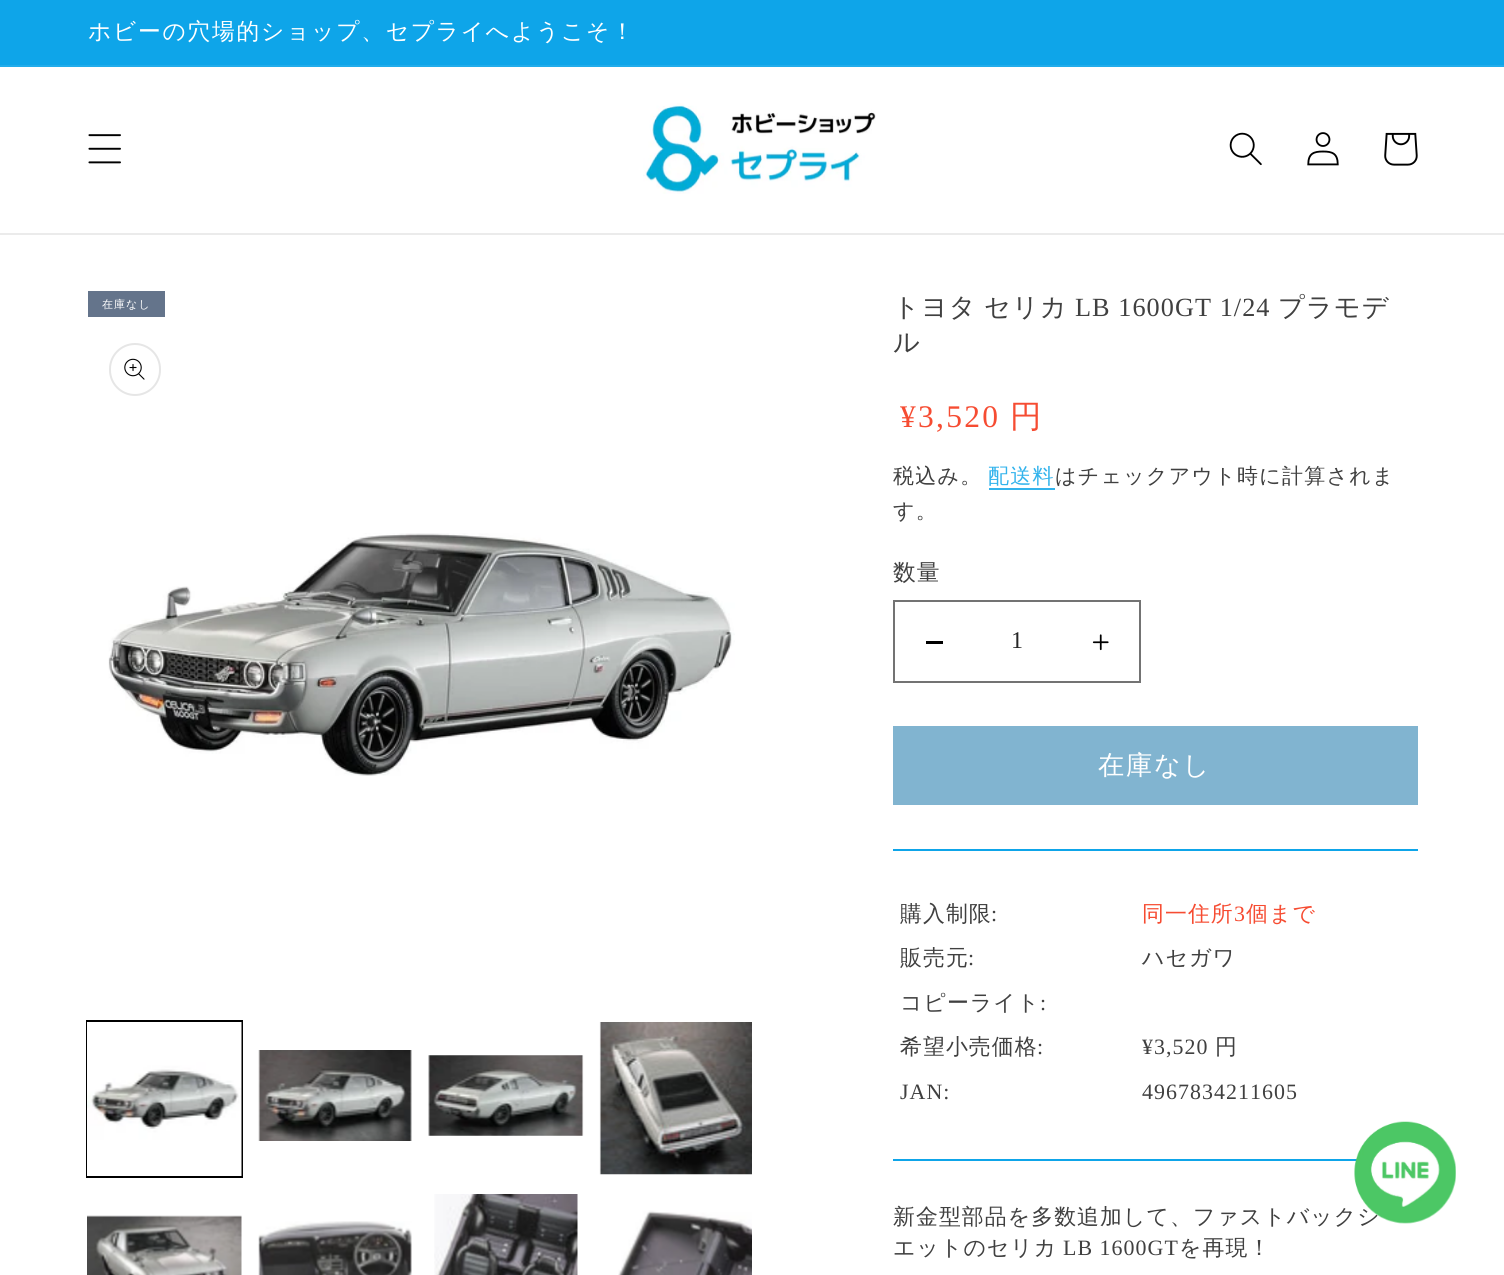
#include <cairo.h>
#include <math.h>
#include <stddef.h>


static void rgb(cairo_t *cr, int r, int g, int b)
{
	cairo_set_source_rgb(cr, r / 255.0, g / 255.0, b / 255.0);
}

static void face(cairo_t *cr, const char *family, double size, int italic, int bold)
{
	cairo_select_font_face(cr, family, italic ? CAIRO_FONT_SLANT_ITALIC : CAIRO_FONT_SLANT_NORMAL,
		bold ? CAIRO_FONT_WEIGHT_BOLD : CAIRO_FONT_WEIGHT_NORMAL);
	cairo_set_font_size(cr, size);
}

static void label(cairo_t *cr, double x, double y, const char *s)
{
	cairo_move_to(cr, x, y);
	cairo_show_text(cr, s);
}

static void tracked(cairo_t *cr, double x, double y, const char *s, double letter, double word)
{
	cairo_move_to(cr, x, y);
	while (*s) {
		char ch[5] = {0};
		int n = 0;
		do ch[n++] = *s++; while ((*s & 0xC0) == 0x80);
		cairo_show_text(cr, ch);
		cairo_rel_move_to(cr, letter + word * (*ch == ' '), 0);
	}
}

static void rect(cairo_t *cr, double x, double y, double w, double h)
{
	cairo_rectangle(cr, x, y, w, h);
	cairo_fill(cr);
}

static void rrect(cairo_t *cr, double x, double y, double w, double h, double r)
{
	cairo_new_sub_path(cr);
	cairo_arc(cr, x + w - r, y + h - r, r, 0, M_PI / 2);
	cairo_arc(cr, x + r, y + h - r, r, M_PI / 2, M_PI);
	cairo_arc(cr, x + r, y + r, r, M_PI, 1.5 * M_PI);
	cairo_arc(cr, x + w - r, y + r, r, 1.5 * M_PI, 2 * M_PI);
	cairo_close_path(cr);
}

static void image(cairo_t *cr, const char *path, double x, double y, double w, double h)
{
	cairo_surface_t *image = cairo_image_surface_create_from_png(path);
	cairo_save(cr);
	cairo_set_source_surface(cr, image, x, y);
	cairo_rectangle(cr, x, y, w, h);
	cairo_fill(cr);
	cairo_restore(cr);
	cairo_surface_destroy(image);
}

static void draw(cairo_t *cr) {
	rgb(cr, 255, 255, 255);
	cairo_paint(cr);
	rgb(cr, 14, 165, 233);
	rect(cr, 0, 0, 1504, 65);
	rgb(cr, 33, 172, 235);
	rect(cr, 0, 65, 1504, 2);
	face(cr, "WenQuanYi Zen Hei Medium", 22.75, 0, 0);
	rgb(cr, 255, 255, 255);
	tracked(cr, 88, 39, "ホビーの穴場的ショップ、セプライへようこそ！", 1.75, 0);
	rgb(cr, 235, 235, 235);
	rect(cr, 0, 233, 1504, 2);
	image(cr, "image0.png", 88, 134, 33, 30);
	image(cr, "image1.png", 643, 103, 233, 91);
	image(cr, "image2.png", 1229, 132, 33, 34);
	image(cr, "image3.png", 1307, 132, 32, 34);
	image(cr, "image4.png", 1384, 132, 34, 34);
	rgb(cr, 100, 116, 139);
	rect(cr, 88, 291, 77, 26);
	face(cr, "WenQuanYi Zen Hei Medium", 11, 0, 0);
	rgb(cr, 255, 255, 255);
	tracked(cr, 102, 308, "在庫なし", 1.05, 0);
	rrect(cr, 110, 344, 50, 51, 25);
	rgb(cr, 230, 230, 230);
	cairo_stroke(cr);
	image(cr, "image5.png", 124, 358, 21, 22);
	image(cr, "image6.png", 108, 533, 627, 243);
	cairo_rectangle(cr, 87, 1021, 155, 156);
	rgb(cr, 0, 0, 0);
	cairo_stroke(cr);
	image(cr, "image7.png", 87, 1022, 155, 154);
	image(cr, "image8.png", 258, 1050, 154, 91);
	image(cr, "image9.png", 428, 1055, 156, 81);
	image(cr, "image10.png", 599, 1022, 153, 153);
	image(cr, "image11.png", 87, 1215, 155, 60);
	image(cr, "image12.png", 258, 1221, 154, 54);
	image(cr, "image13.png", 434, 1194, 144, 81);
	image(cr, "image14.png", 618, 1210, 134, 65);
	face(cr, "WenQuanYi Zen Hei Medium", 26.25, 0, 0);
	rgb(cr, 64, 64, 64);
	tracked(cr, 893, 316, "トヨタ", 1.05, 0);
	tracked(cr, 984, 316, "セリカ", 1.05, 0);
	face(cr, "Liberation Serif", 26.25, 0, 0);
	tracked(cr, 1075, 316, "LB 1600GT 1/24", 1.05, 0);
	face(cr, "WenQuanYi Zen Hei Medium", 26.25, 0, 0);
	tracked(cr, 1278, 316, "プラモデ", 1.05, 0);
	tracked(cr, 893, 351, "ル", 1.05, 0);
	face(cr, "Liberation Serif", 31.5, 0, 0);
	rgb(cr, 246, 76, 50);
	tracked(cr, 900, 427, "¥3,520", 2.25, 0);
	face(cr, "WenQuanYi Zen Hei Medium", 31.5, 0, 0);
	tracked(cr, 1010, 427, "円", 2.25, 0);
	face(cr, "WenQuanYi Zen Hei Medium", 21, 0, 0);
	rgb(cr, 64, 64, 64);
	tracked(cr, 893, 483, "税込み。", 1.25, 0);
	rgb(cr, 50, 179, 236);
	tracked(cr, 988, 483, "配送料", 1.25, 0);
	rect(cr, 989, 488, 66, 2);
	rgb(cr, 64, 64, 64);
	tracked(cr, 1055, 483, "はチェックアウト時に計算されま", 1.25, 0);
	tracked(cr, 893, 518, "す。", 1.25, 0);
	face(cr, "WenQuanYi Zen Hei Medium", 22.75, 0, 0);
	tracked(cr, 893, 580, "数量", 1, 0);
	rgb(cr, 0, 0, 0);
	rect(cr, 926, 641, 17, 3);
	image(cr, "image15.png", 1092, 634, 17, 17);
	cairo_rectangle(cr, 894, 601, 246, 81);
	rgb(cr, 115, 115, 115);
	cairo_stroke(cr);
	face(cr, "Liberation Serif", 24, 0, 0);
	rgb(cr, 38, 38, 38);
	label(cr, 1011, 648, "1");
	rgb(cr, 129, 180, 208);
	rect(cr, 893, 726, 525, 79);
	face(cr, "WenQuanYi Zen Hei Medium", 26.25, 0, 0);
	rgb(cr, 255, 255, 255);
	tracked(cr, 1098, 774, "在庫なし", 1.75, 0);
	rgb(cr, 14, 165, 233);
	rect(cr, 893, 849, 525, 2);
	rect(cr, 893, 1159, 482, 2);
	face(cr, "WenQuanYi Zen Hei Medium", 21.9, 0, 0);
	rgb(cr, 64, 64, 64);
	tracked(cr, 900, 921, "購入制限", 1.05, 0);
	face(cr, "Liberation Serif", 21.9, 0, 0);
	tracked(cr, 991, 921, ":", 1.05, 0);
	face(cr, "WenQuanYi Zen Hei Medium", 21.9, 0, 0);
	rgb(cr, 246, 76, 50);
	tracked(cr, 1142, 921, "同一住所", 1.05, 0);
	face(cr, "Liberation Serif", 21.9, 0, 0);
	tracked(cr, 1234, 921, "3", 1.05, 0);
	face(cr, "WenQuanYi Zen Hei Medium", 21.9, 0, 0);
	tracked(cr, 1246, 921, "個まで", 1.05, 0);
	rgb(cr, 64, 64, 64);
	tracked(cr, 900, 965, "販売元", 1.05, 0);
	face(cr, "Liberation Serif", 21.9, 0, 0);
	tracked(cr, 968, 965, ":", 1.05, 0);
	face(cr, "WenQuanYi Zen Hei Medium", 21.9, 0, 0);
	tracked(cr, 1142, 965, "ハセガワ", 1.05, 0);
	tracked(cr, 900, 1010, "コピーライト", 1.05, 0);
	face(cr, "Liberation Serif", 21.9, 0, 0);
	tracked(cr, 1040, 1010, ":", 1.05, 0);
	face(cr, "WenQuanYi Zen Hei Medium", 21.9, 0, 0);
	tracked(cr, 900, 1054, "希望小売価格", 1.05, 0);
	face(cr, "Liberation Serif", 21.9, 0, 0);
	tracked(cr, 1037, 1054, ":", 1.05, 0);
	tracked(cr, 1142, 1054, "¥3,520", 1.05, 0);
	face(cr, "WenQuanYi Zen Hei Medium", 21.9, 0, 0);
	tracked(cr, 1215, 1054, "円", 1.05, 0);
	face(cr, "Liberation Serif", 21.9, 0, 0);
	tracked(cr, 900, 1099, "JAN:", 1.05, 0);
	tracked(cr, 1142, 1099, "4967834211605", 1.05, 0);
	face(cr, "WenQuanYi Zen Hei Medium", 21.9, 0, 0);
	tracked(cr, 893, 1224, "新金型部品を多数追加して、ファストバックシ", 1.05, 0);
	tracked(cr, 893, 1255, "エットのセリカ", 1.05, 0);
	face(cr, "Liberation Serif", 21.9, 0, 0);
	tracked(cr, 1063, 1255, "LB 1600GT", 1.05, 0);
	face(cr, "WenQuanYi Zen Hei Medium", 21.9, 0, 0);
	tracked(cr, 1179, 1255, "を再現！", 1.05, 0);
	image(cr, "image16.png", 1354, 1121, 102, 103);
}

int main(void) {
	cairo_surface_t *surface = cairo_image_surface_create(CAIRO_FORMAT_RGB24, 1504, 1275);
	cairo_t *cr = cairo_create(surface);
	cairo_font_options_t *options = cairo_font_options_create();
	cairo_font_options_set_hint_metrics(options, CAIRO_HINT_METRICS_OFF);
	cairo_font_options_set_hint_style(options, CAIRO_HINT_STYLE_NONE);
	cairo_set_font_options(cr, options);
	cairo_set_miter_limit(cr, 4);
	draw(cr);
	cairo_surface_write_to_png(surface, "render.png");
	cairo_font_options_destroy(options);
	cairo_destroy(cr);
	cairo_surface_destroy(surface);
	return 0;
}
